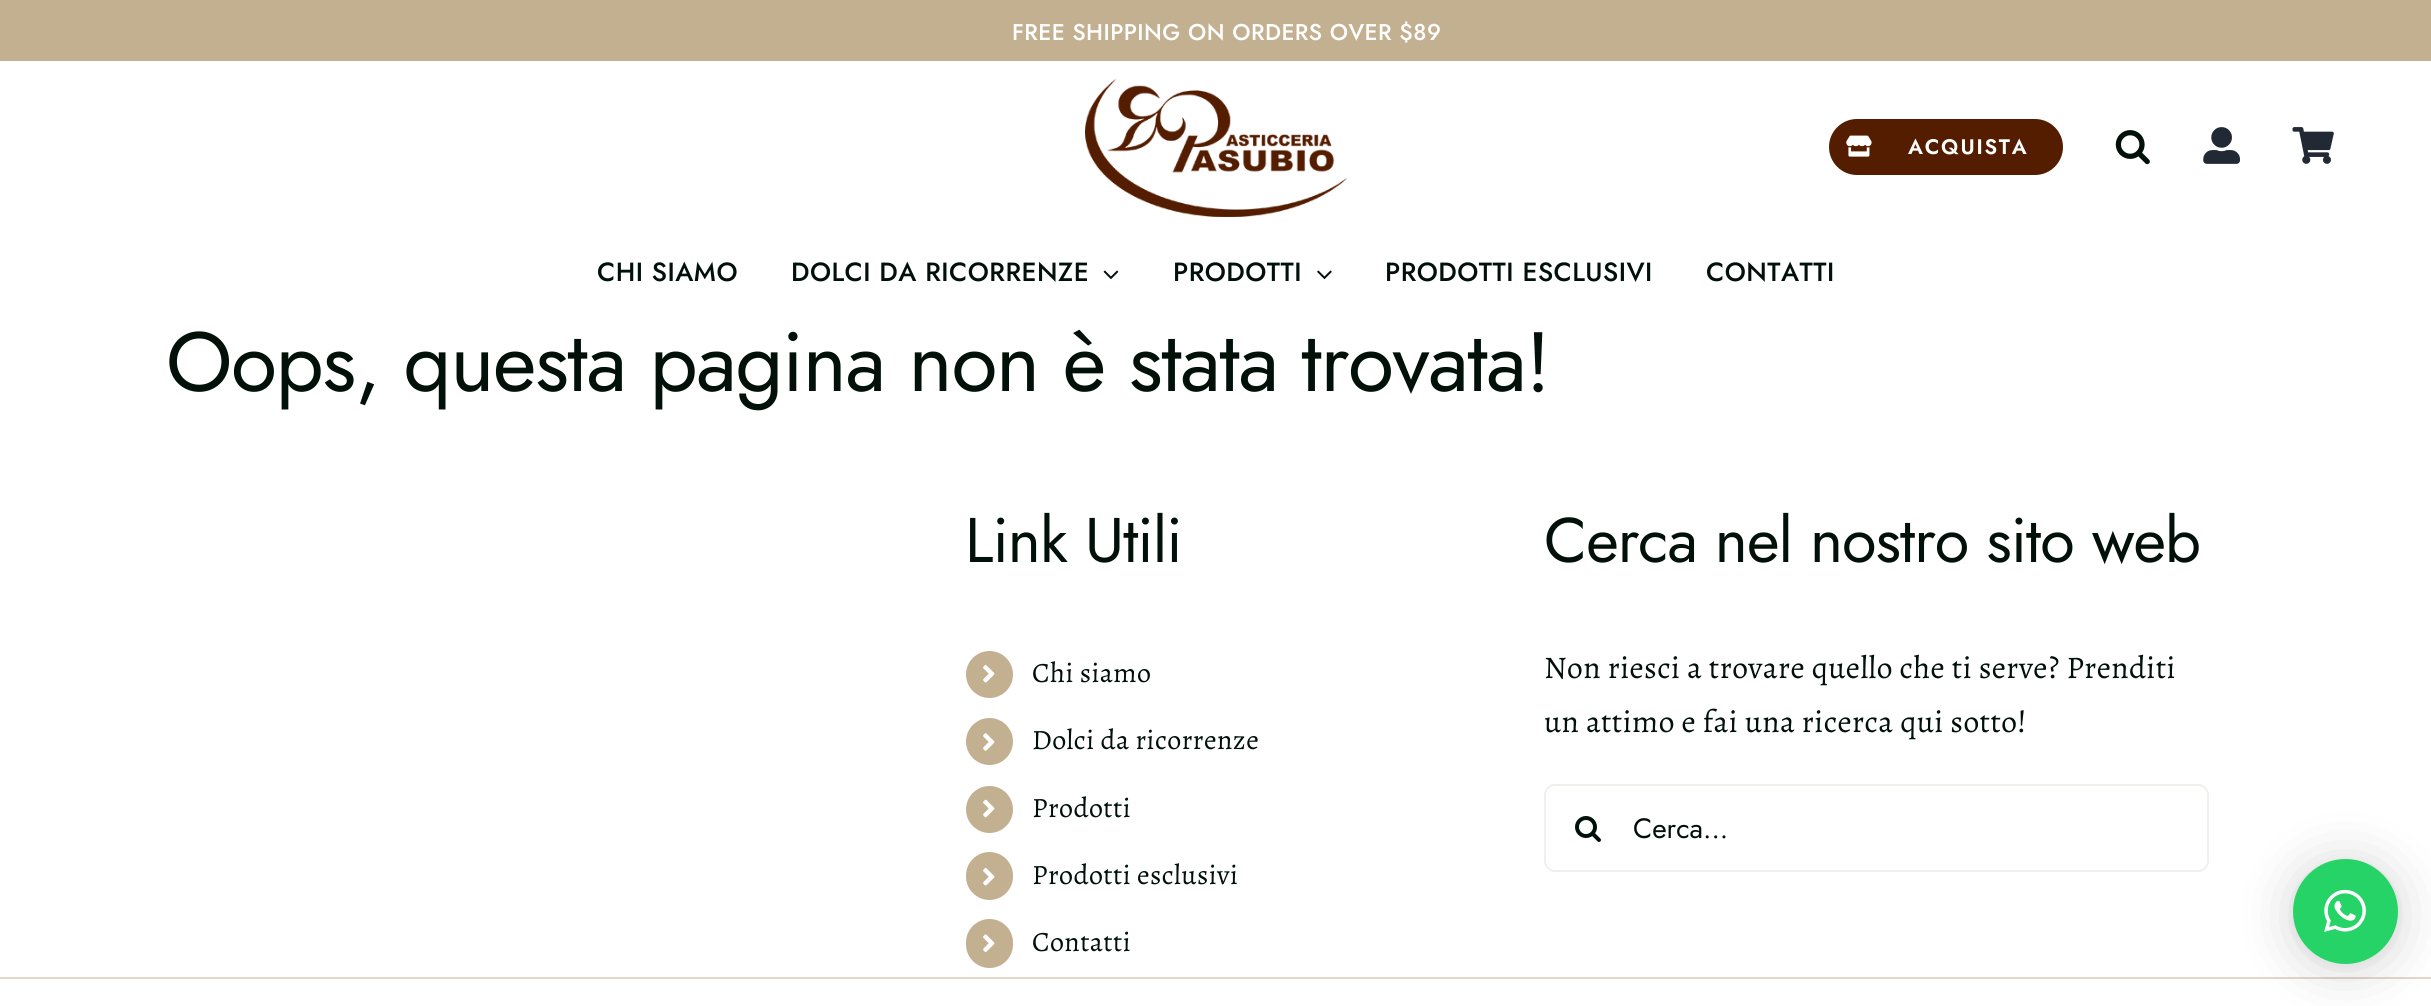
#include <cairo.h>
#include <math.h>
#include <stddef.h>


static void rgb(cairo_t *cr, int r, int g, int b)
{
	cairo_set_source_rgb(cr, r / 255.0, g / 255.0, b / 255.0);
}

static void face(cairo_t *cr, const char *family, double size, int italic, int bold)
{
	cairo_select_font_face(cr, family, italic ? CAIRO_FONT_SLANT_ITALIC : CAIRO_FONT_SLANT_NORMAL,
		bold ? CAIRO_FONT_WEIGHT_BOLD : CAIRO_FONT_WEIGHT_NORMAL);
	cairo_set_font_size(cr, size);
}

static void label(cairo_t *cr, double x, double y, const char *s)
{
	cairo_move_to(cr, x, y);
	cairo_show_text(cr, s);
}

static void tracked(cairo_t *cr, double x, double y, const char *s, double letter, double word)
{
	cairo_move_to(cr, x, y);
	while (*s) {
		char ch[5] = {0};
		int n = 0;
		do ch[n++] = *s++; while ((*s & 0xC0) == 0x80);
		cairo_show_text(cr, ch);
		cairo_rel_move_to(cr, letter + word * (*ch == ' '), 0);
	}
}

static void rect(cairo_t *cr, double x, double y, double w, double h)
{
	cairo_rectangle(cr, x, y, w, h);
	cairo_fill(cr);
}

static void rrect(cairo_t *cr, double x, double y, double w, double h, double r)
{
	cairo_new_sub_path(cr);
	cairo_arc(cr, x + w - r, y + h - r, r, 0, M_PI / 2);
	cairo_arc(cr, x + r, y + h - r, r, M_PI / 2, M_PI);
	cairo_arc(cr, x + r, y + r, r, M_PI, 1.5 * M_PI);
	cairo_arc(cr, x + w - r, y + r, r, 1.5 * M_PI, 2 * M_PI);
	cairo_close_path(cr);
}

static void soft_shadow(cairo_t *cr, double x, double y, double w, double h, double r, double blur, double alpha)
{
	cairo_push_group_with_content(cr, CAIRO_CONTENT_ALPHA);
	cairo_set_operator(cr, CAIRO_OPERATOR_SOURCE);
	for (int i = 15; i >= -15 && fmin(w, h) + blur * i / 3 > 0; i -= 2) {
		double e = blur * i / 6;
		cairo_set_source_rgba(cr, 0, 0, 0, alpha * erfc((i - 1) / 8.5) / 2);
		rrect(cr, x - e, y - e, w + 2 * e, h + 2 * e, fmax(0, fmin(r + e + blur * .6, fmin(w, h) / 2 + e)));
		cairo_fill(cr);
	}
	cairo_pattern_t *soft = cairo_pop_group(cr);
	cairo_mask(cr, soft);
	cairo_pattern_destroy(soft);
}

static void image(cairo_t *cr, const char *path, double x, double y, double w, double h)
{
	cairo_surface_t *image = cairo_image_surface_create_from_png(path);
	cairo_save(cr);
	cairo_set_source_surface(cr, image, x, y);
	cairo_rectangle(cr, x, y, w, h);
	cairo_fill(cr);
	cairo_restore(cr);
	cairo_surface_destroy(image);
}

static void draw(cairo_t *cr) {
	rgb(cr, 255, 255, 255);
	cairo_paint(cr);
	rgb(cr, 195, 176, 145);
	rect(cr, 0, 0, 2431, 61);
	face(cr, "Jost Medium", 22.75, 0, 0);
	rgb(cr, 255, 255, 255);
	tracked(cr, 1012, 40, "FREE SHIPPING ON ORDERS OVER $89", 0.45, 0);
	image(cr, "image0.png", 1085, 79, 263, 138);
	rgb(cr, 85, 29, 0);
	rrect(cr, 1829, 119, 234, 56, 28);
	cairo_fill(cr);
	image(cr, "image1.png", 1846, 135, 26, 22);
	face(cr, "Jost SemiBold", 21, 0, 0);
	rgb(cr, 255, 255, 255);
	tracked(cr, 1908, 154, "ACQUISTA", 1.75, 0);
	image(cr, "image2.png", 2115, 130, 35, 35);
	image(cr, "image3.png", 2203, 127, 37, 37);
	image(cr, "image4.png", 2292, 127, 42, 37);
	face(cr, "Jost Medium", 26.25, 0, 0);
	rgb(cr, 1, 17, 10);
	tracked(cr, 597, 281, "CHI SIAMO", 0.5, 0);
	tracked(cr, 791, 281, "DOLCI DA RICORRENZE", 0.5, 0);
	image(cr, "image5.png", 1103, 270, 16, 9);
	tracked(cr, 1173, 281, "PRODOTTI", 0.5, 0);
	image(cr, "image6.png", 1317, 270, 15, 9);
	tracked(cr, 1385, 281, "PRODOTTI ESCLUSIVI", 0.5, 0);
	tracked(cr, 1706, 281, "CONTATTI", 0.5, 0);
	face(cr, "Jost", 84, 0, 0);
	tracked(cr, 166, 391, "Oops, questa pagina non è stata trovata!", -1.25, 0);
	face(cr, "Jost", 63, 0, 0);
	tracked(cr, 965, 562, "Link Utili", -0.95, 0);
	rgb(cr, 195, 176, 145);
	cairo_new_path(cr);
	cairo_arc(cr, 989.5, 674.5, 23.5, 0, 2 * M_PI);
	cairo_fill(cr);
	image(cr, "image7.png", 983, 665, 12, 18);
	face(cr, "Alegreya", 28, 0, 0);
	rgb(cr, 1, 17, 10);
	tracked(cr, 1032, 682, "Chi siamo", 0.45, 0);
	rgb(cr, 195, 176, 145);
	cairo_new_path(cr);
	cairo_arc(cr, 989.5, 741.5, 23.5, 0, 2 * M_PI);
	cairo_fill(cr);
	image(cr, "image8.png", 983, 733, 12, 18);
	rgb(cr, 1, 17, 10);
	tracked(cr, 1032, 749, "Dolci da ricorrenze", 0.45, 0);
	rgb(cr, 195, 176, 145);
	cairo_new_path(cr);
	cairo_arc(cr, 989.5, 809.5, 23.5, 0, 2 * M_PI);
	cairo_fill(cr);
	image(cr, "image9.png", 983, 799, 12, 19);
	rgb(cr, 1, 17, 10);
	tracked(cr, 1032, 817, "Prodotti", 0.45, 0);
	rgb(cr, 195, 176, 145);
	rrect(cr, 966, 852, 47, 48, 23.5);
	cairo_fill(cr);
	image(cr, "image7.png", 983, 868, 12, 18);
	rgb(cr, 1, 17, 10);
	tracked(cr, 1032, 884, "Prodotti esclusivi", 0.45, 0);
	rgb(cr, 195, 176, 145);
	rrect(cr, 966, 919, 47, 49, 23.5);
	cairo_fill(cr);
	image(cr, "image10.png", 983, 934, 12, 18);
	rgb(cr, 1, 17, 10);
	tracked(cr, 1032, 951, "Contatti", 0.45, 0);
	face(cr, "Jost", 63, 0, 0);
	tracked(cr, 1544, 562, "Cerca nel nostro sito web", -0.95, 0);
	face(cr, "Alegreya", 31.5, 0, 0);
	tracked(cr, 1544, 678, "Non riesci a trovare quello che ti serve? Prenditi", 0.45, 0);
	tracked(cr, 1544, 732, "un attimo e fai una ricerca qui sotto!", 0.45, 0);
	rrect(cr, 1545, 785, 663, 86, 10);
	rgb(cr, 239, 241, 237);
	cairo_stroke(cr);
	image(cr, "image11.png", 1575, 816, 26, 26);
	face(cr, "Jost", 28, 0, 0);
	rgb(cr, 1, 17, 10);
	label(cr, 1633, 838, "Cerca...");
	rgb(cr, 225, 216, 200);
	rect(cr, 0, 977, 2431, 2);
	rgb(cr, 0, 0, 0);
	soft_shadow(cr, 2293, 863, 105, 105, 52.5, 28, 0.16);
	soft_shadow(cr, 2293, 861, 105, 105, 52.5, 5, 0.06);
	rgb(cr, 37, 211, 102);
	cairo_arc(cr, 2345.5, 911.5, 52.5, 0, 2 * M_PI);
	cairo_fill(cr);
	image(cr, "image12.png", 2324, 889, 42, 43);
}

int main(void) {
	cairo_surface_t *surface = cairo_image_surface_create(CAIRO_FORMAT_RGB24, 2431, 1006);
	cairo_t *cr = cairo_create(surface);
	cairo_font_options_t *options = cairo_font_options_create();
	cairo_font_options_set_hint_metrics(options, CAIRO_HINT_METRICS_OFF);
	cairo_font_options_set_hint_style(options, CAIRO_HINT_STYLE_NONE);
	cairo_set_font_options(cr, options);
	cairo_set_miter_limit(cr, 4);
	draw(cr);
	cairo_surface_write_to_png(surface, "render.png");
	cairo_font_options_destroy(options);
	cairo_destroy(cr);
	cairo_surface_destroy(surface);
	return 0;
}
